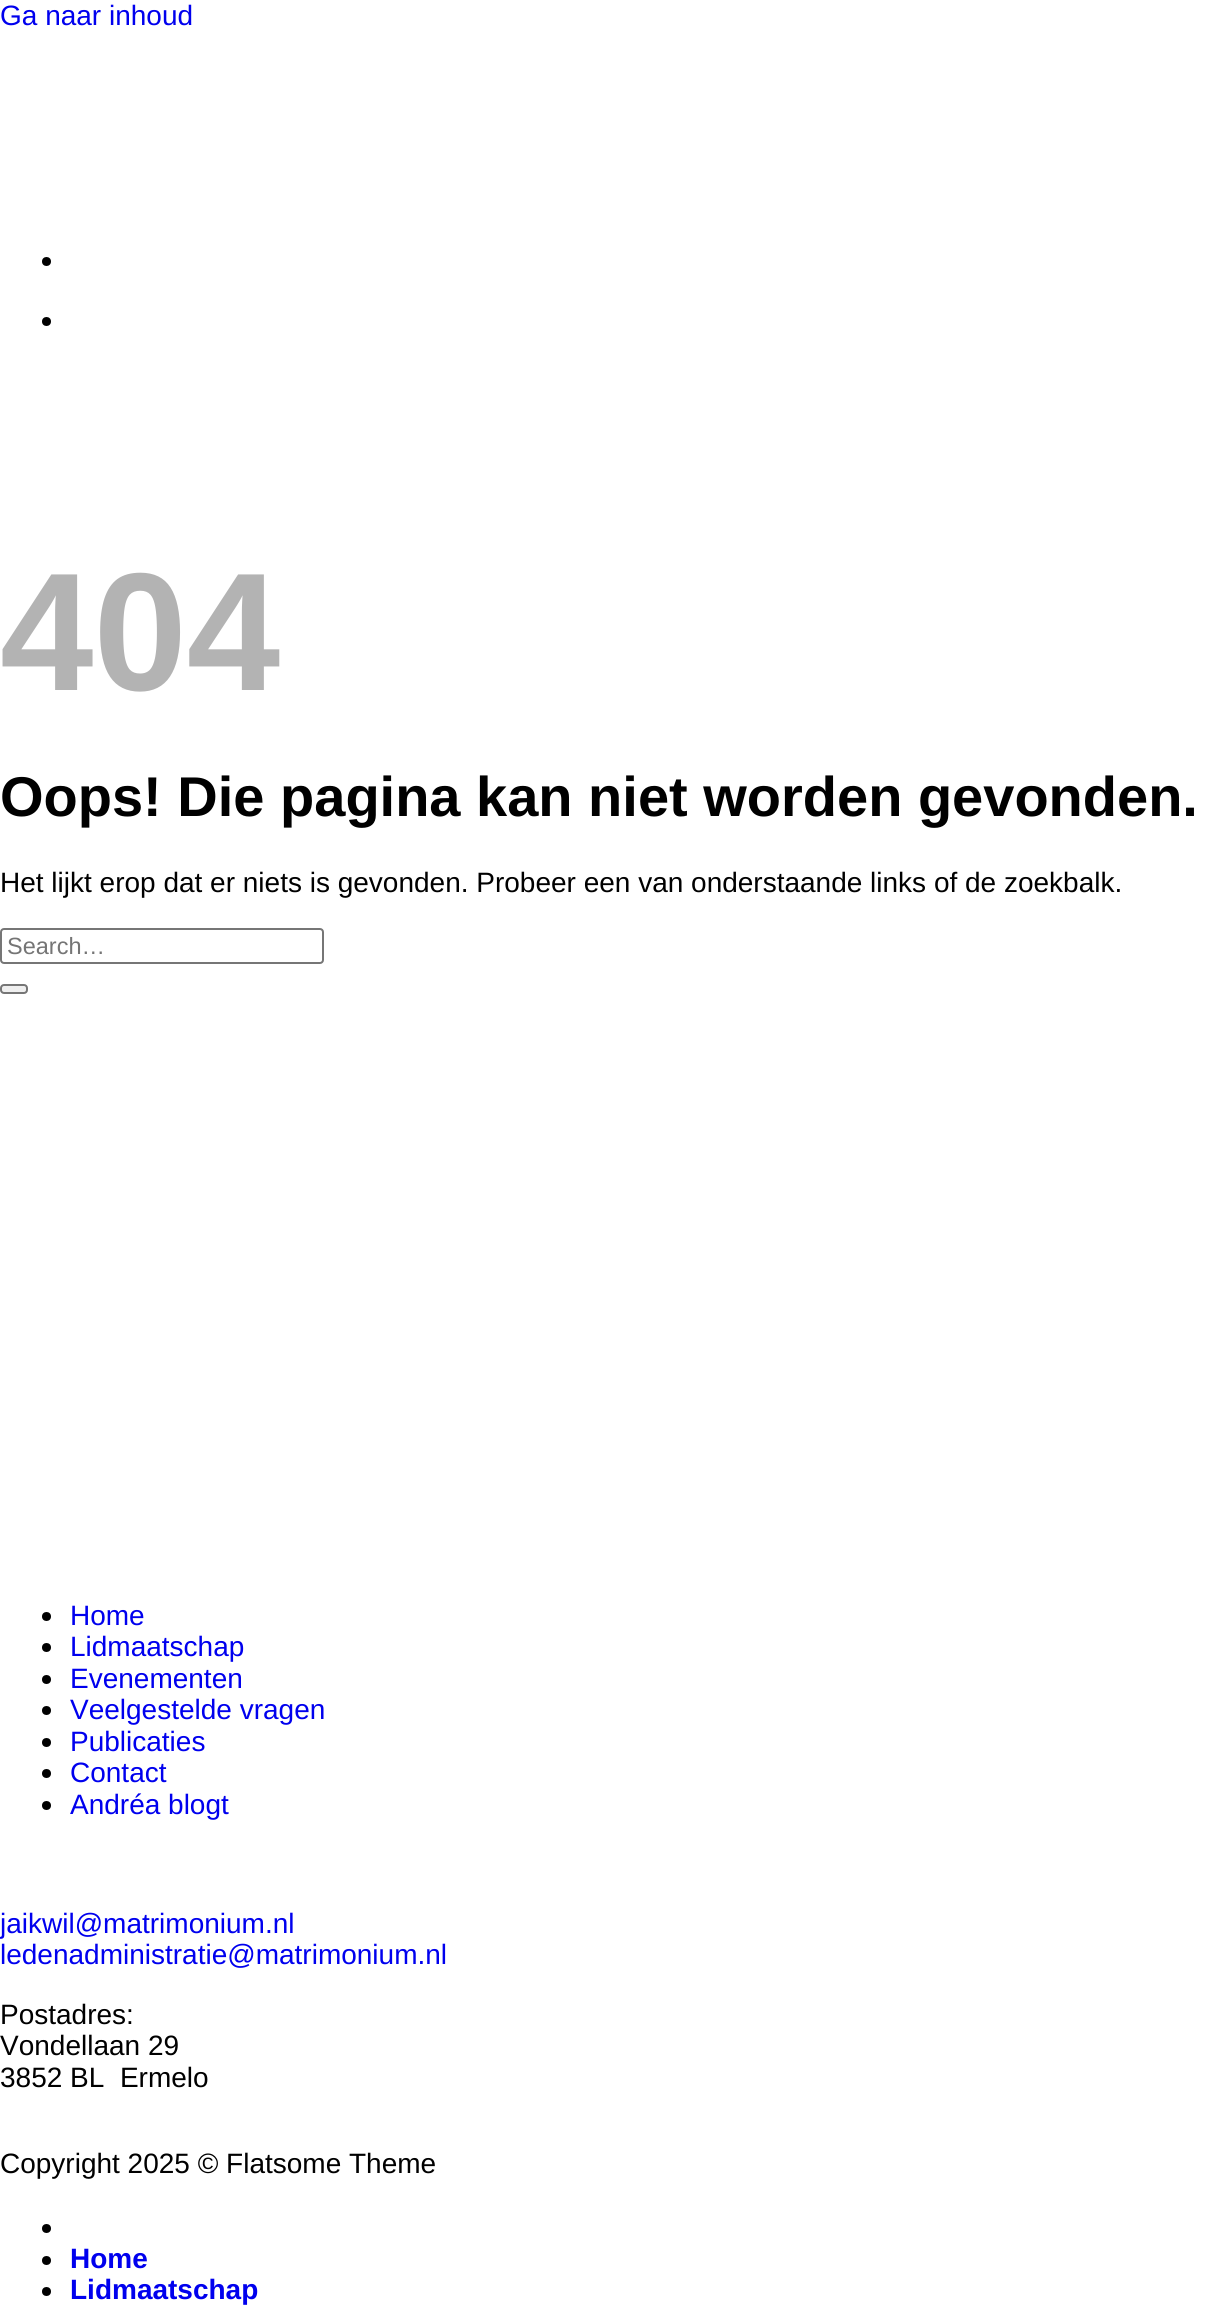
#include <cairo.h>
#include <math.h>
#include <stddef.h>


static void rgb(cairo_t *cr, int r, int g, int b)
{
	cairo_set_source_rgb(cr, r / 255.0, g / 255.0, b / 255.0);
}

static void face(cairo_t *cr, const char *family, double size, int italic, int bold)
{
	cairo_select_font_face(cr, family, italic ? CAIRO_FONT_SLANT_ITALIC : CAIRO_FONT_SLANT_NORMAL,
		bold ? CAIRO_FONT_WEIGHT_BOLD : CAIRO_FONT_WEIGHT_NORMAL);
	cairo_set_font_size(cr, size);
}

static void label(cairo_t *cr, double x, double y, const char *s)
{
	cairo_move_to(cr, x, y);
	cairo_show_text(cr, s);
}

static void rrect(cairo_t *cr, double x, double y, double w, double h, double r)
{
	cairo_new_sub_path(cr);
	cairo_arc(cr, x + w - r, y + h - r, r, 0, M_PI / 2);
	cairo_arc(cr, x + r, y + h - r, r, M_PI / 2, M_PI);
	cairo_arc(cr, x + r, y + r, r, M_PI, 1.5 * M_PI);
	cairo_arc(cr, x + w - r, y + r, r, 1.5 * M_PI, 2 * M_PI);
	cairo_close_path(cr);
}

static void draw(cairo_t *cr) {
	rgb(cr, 255, 255, 255);
	cairo_paint(cr);
	face(cr, "Liberation Sans", 28, 0, 0);
	rgb(cr, 0, 0, 238);
	label(cr, 0, 25, "Ga naar inhoud");
	rgb(cr, 0, 0, 0);
	cairo_new_path(cr);
	cairo_arc(cr, 46.5, 261.5, 4.5, 0, 2 * M_PI);
	cairo_fill(cr);
	cairo_arc(cr, 46.5, 321.5, 4.5, 0, 2 * M_PI);
	cairo_fill(cr);
	face(cr, "Liberation Sans", 168, 0, 1);
	rgb(cr, 179, 179, 179);
	label(cr, 0, 690, "404");
	face(cr, "Liberation Sans", 56, 0, 1);
	rgb(cr, 0, 0, 0);
	label(cr, 0, 816, "Oops! Die pagina kan niet worden gevonden.");
	face(cr, "Liberation Sans", 28, 0, 0);
	label(cr, 0, 892, "Het lijkt erop dat er niets is gevonden. Probeer een van onderstaande links of de zoekbalk.");
	rrect(cr, 1, 929, 322, 34, 3);
	rgb(cr, 118, 118, 118);
	cairo_stroke(cr);
	face(cr, "Liberation Sans", 23.5, 0, 0);
	rgb(cr, 117, 117, 117);
	label(cr, 7, 954, "Search…");
	rgb(cr, 239, 239, 239);
	rrect(cr, 1, 985, 26, 8, 3);
	cairo_fill_preserve(cr);
	rgb(cr, 118, 118, 118);
	cairo_stroke(cr);
	rgb(cr, 0, 0, 0);
	cairo_arc(cr, 46.5, 1616.5, 4.5, 0, 2 * M_PI);
	cairo_fill(cr);
	face(cr, "Liberation Sans", 28, 0, 0);
	rgb(cr, 0, 0, 238);
	label(cr, 70, 1625, "Home");
	rgb(cr, 0, 0, 0);
	cairo_new_path(cr);
	cairo_arc(cr, 46.5, 1647.5, 4.5, 0, 2 * M_PI);
	cairo_fill(cr);
	rgb(cr, 0, 0, 238);
	label(cr, 70, 1656, "Lidmaatschap");
	rgb(cr, 0, 0, 0);
	cairo_new_path(cr);
	cairo_arc(cr, 46.5, 1679.5, 4.5, 0, 2 * M_PI);
	cairo_fill(cr);
	rgb(cr, 0, 0, 238);
	label(cr, 70, 1688, "Evenementen");
	rgb(cr, 0, 0, 0);
	cairo_new_path(cr);
	cairo_arc(cr, 46.5, 1710.5, 4.5, 0, 2 * M_PI);
	cairo_fill(cr);
	rgb(cr, 0, 0, 238);
	label(cr, 70, 1719, "Veelgestelde vragen");
	rgb(cr, 0, 0, 0);
	cairo_new_path(cr);
	cairo_arc(cr, 46.5, 1742.5, 4.5, 0, 2 * M_PI);
	cairo_fill(cr);
	rgb(cr, 0, 0, 238);
	label(cr, 70, 1751, "Publicaties");
	rgb(cr, 0, 0, 0);
	cairo_new_path(cr);
	cairo_arc(cr, 46.5, 1773.5, 4.5, 0, 2 * M_PI);
	cairo_fill(cr);
	rgb(cr, 0, 0, 238);
	label(cr, 70, 1782, "Contact");
	rgb(cr, 0, 0, 0);
	cairo_new_path(cr);
	cairo_arc(cr, 46.5, 1805.5, 4.5, 0, 2 * M_PI);
	cairo_fill(cr);
	rgb(cr, 0, 0, 238);
	label(cr, 70, 1814, "Andréa blogt");
	label(cr, 0, 1933, "jaikwil@matrimonium.nl");
	label(cr, 0, 1964, "ledenadministratie@matrimonium.nl");
	rgb(cr, 0, 0, 0);
	label(cr, 0, 2024, "Postadres:");
	label(cr, 0, 2055, "Vondellaan 29");
	label(cr, 0, 2087, "3852 BL  Ermelo");
	label(cr, 0, 2173, "Copyright 2025 © Flatsome Theme");
	cairo_new_path(cr);
	cairo_arc(cr, 46.5, 2228.5, 4.5, 0, 2 * M_PI);
	cairo_fill(cr);
	cairo_arc(cr, 46.5, 2260.5, 4.5, 0, 2 * M_PI);
	cairo_fill(cr);
	face(cr, "Liberation Sans", 28, 0, 1);
	rgb(cr, 0, 0, 238);
	label(cr, 70, 2268, "Home");
	rgb(cr, 0, 0, 0);
	cairo_new_path(cr);
	cairo_arc(cr, 46.5, 2291.5, 4.5, 0, 2 * M_PI);
	cairo_fill(cr);
	rgb(cr, 0, 0, 238);
	label(cr, 70, 2299, "Lidmaatschap");
}

int main(void) {
	cairo_surface_t *surface = cairo_image_surface_create(CAIRO_FORMAT_RGB24, 1226, 2305);
	cairo_t *cr = cairo_create(surface);
	cairo_font_options_t *options = cairo_font_options_create();
	cairo_font_options_set_hint_metrics(options, CAIRO_HINT_METRICS_OFF);
	cairo_font_options_set_hint_style(options, CAIRO_HINT_STYLE_NONE);
	cairo_set_font_options(cr, options);
	cairo_set_miter_limit(cr, 4);
	draw(cr);
	cairo_surface_write_to_png(surface, "render.png");
	cairo_font_options_destroy(options);
	cairo_destroy(cr);
	cairo_surface_destroy(surface);
	return 0;
}
